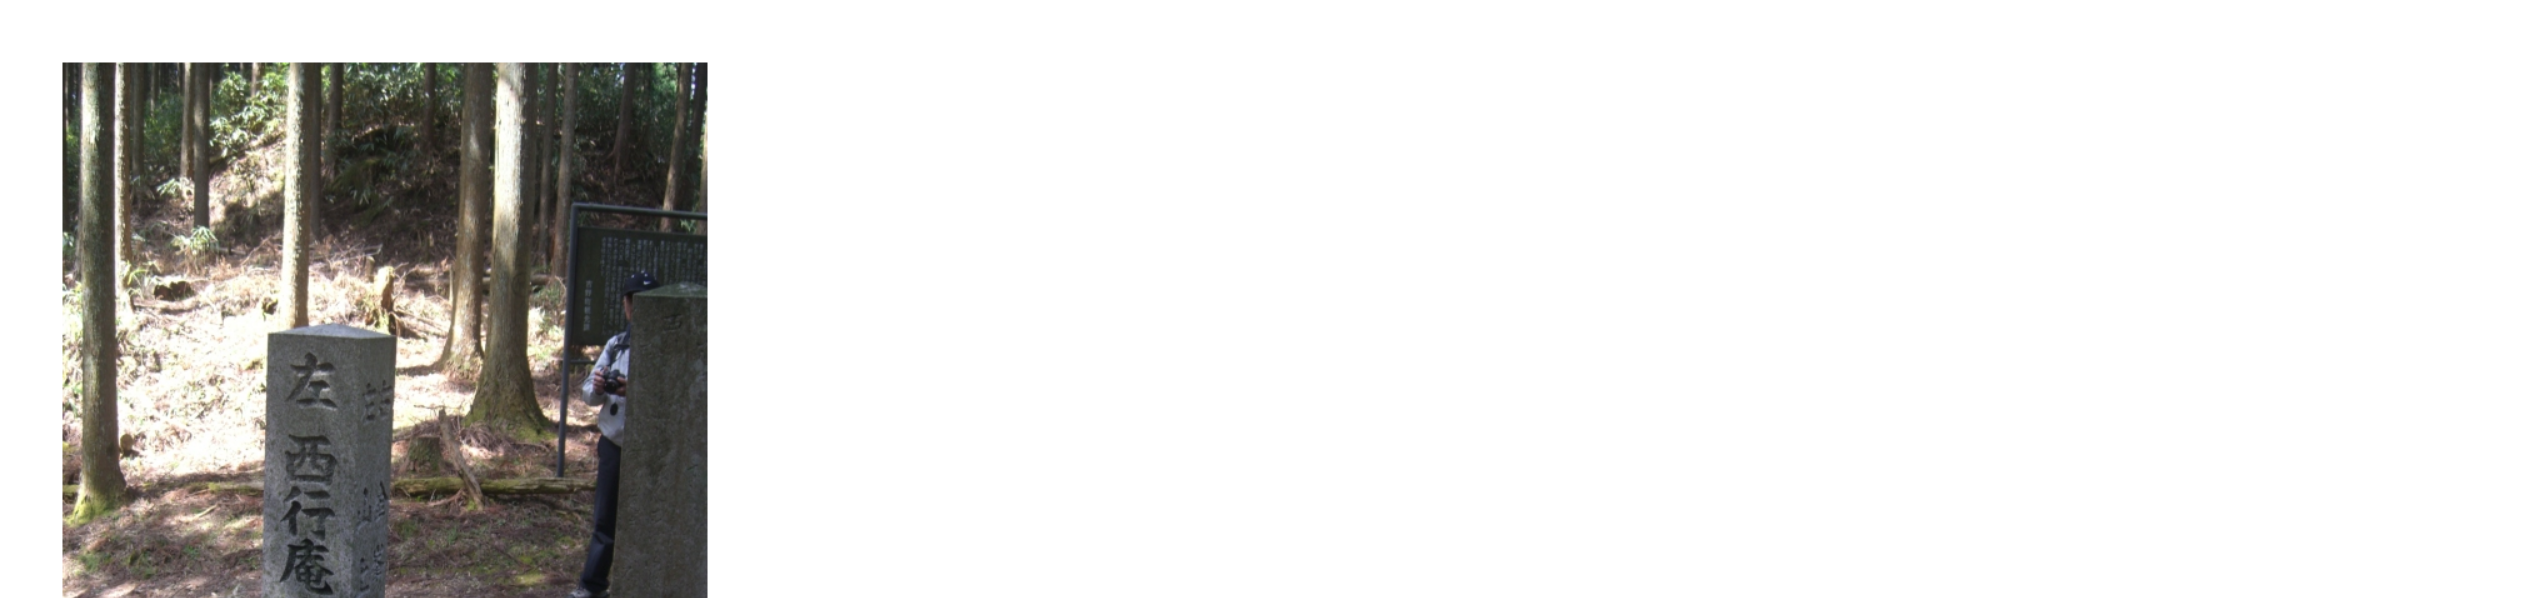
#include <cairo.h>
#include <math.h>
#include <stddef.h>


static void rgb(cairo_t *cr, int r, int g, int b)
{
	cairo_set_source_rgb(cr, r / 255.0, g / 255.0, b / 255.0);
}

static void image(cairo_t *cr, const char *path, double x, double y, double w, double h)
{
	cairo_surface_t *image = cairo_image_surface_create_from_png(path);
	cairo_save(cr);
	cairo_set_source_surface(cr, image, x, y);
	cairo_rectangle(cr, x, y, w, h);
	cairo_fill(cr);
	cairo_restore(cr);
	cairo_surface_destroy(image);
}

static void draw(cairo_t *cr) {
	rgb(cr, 255, 255, 255);
	cairo_paint(cr);
	image(cr, "image0.png", 62, 62, 646, 536);
}

int main(void) {
	cairo_surface_t *surface = cairo_image_surface_create(CAIRO_FORMAT_RGB24, 2525, 598);
	cairo_t *cr = cairo_create(surface);
	cairo_font_options_t *options = cairo_font_options_create();
	cairo_font_options_set_hint_metrics(options, CAIRO_HINT_METRICS_OFF);
	cairo_font_options_set_hint_style(options, CAIRO_HINT_STYLE_NONE);
	cairo_set_font_options(cr, options);
	cairo_set_miter_limit(cr, 4);
	draw(cr);
	cairo_surface_write_to_png(surface, "render.png");
	cairo_font_options_destroy(options);
	cairo_destroy(cr);
	cairo_surface_destroy(surface);
	return 0;
}
